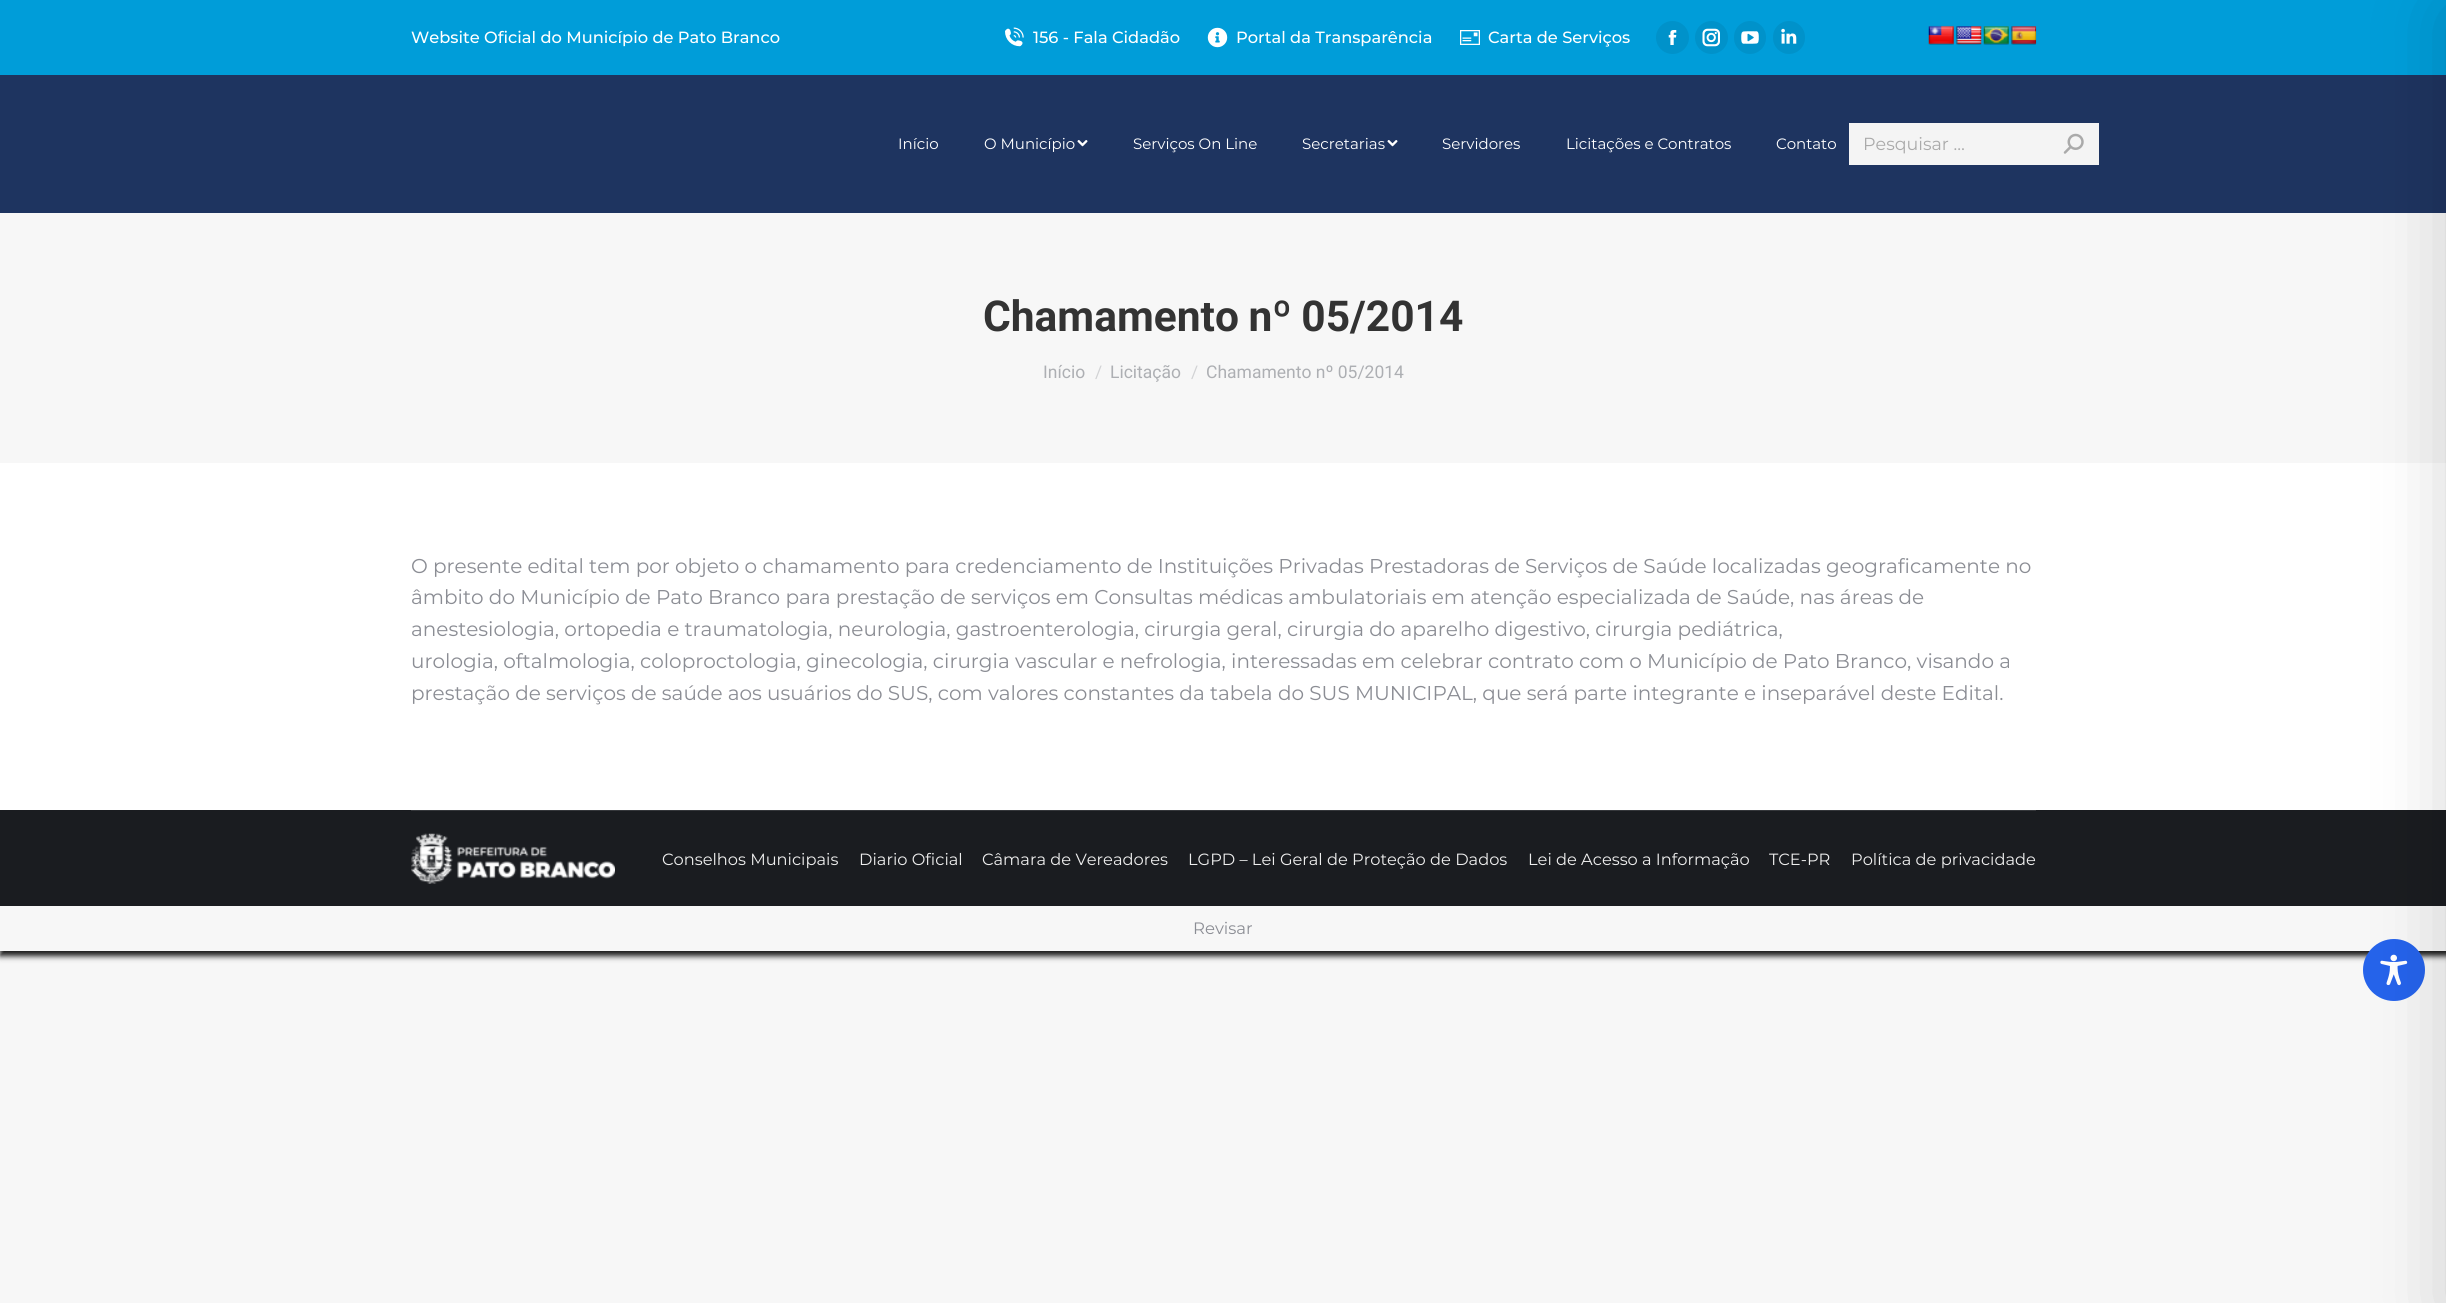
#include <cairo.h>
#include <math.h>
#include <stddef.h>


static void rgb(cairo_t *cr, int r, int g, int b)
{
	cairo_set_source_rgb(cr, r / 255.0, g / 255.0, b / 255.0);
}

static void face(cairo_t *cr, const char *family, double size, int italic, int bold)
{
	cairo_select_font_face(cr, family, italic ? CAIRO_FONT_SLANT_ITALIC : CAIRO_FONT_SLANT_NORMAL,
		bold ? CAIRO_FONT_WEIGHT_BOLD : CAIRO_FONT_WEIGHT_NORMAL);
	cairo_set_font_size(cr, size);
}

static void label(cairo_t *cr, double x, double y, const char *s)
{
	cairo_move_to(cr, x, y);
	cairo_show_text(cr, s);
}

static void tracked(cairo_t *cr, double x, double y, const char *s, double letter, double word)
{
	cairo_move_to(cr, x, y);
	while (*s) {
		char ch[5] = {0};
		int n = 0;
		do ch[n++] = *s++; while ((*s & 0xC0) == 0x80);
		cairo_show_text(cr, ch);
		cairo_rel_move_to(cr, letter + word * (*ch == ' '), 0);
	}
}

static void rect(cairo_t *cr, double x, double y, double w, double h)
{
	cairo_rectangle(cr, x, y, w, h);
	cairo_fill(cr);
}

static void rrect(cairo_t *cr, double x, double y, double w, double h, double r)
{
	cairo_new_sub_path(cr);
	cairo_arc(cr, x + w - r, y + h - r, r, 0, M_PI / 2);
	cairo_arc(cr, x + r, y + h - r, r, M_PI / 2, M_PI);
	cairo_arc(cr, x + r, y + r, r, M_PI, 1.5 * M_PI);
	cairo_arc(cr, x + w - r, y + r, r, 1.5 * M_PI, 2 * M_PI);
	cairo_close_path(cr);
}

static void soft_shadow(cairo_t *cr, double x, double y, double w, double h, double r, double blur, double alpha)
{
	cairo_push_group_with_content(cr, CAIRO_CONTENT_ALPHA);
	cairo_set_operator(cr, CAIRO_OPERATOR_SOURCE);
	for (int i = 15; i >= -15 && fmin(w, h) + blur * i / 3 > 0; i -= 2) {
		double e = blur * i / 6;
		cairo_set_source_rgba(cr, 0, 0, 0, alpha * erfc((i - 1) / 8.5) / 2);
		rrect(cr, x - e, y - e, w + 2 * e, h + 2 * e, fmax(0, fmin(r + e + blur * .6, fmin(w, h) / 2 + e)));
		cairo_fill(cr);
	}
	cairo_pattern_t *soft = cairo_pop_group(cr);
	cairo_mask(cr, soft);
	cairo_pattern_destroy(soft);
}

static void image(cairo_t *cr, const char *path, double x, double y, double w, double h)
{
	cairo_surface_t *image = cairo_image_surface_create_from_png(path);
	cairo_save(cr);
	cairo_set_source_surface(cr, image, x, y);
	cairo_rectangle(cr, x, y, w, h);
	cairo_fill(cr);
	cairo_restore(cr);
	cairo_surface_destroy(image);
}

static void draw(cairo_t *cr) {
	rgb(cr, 247, 247, 247);
	cairo_paint(cr);
	rgb(cr, 255, 255, 255);
	rect(cr, 0, 463, 2446, 347);
	rgb(cr, 30, 52, 96);
	rect(cr, 0, 75, 2446, 138);
	rgb(cr, 0, 157, 217);
	rect(cr, 0, 0, 2446, 75);
	face(cr, "Montserrat Medium", 16.25, 0, 0);
	rgb(cr, 255, 255, 255);
	label(cr, 411, 43, "Website Oficial do Município de Pato Branco");
	image(cr, "image0.png", 1005, 27, 19, 20);
	label(cr, 1033, 43, "156 - Fala Cidadão");
	image(cr, "image1.png", 1207, 27, 21, 21);
	label(cr, 1236, 43, "Portal da Transparência");
	image(cr, "image2.png", 1460, 30, 20, 15);
	label(cr, 1488, 43, "Carta de Serviços");
	rgb(cr, 0, 146, 202);
	cairo_new_path(cr);
	cairo_arc(cr, 1672.5, 37.5, 16.5, 0, 2 * M_PI);
	cairo_fill(cr);
	image(cr, "image3.png", 1668, 30, 9, 15);
	cairo_arc(cr, 1711.5, 37.5, 16.5, 0, 2 * M_PI);
	cairo_fill(cr);
	image(cr, "image4.png", 1702, 28, 18, 19);
	rrect(cr, 1734, 21, 32, 33, 16);
	cairo_fill(cr);
	image(cr, "image5.png", 1741, 31, 18, 13);
	rrect(cr, 1773, 21, 32, 33, 16);
	cairo_fill(cr);
	image(cr, "image6.png", 1781, 28, 16, 16);
	image(cr, "image7.png", 1928, 25, 26, 20);
	image(cr, "image8.png", 1956, 26, 26, 19);
	image(cr, "image9.png", 1983, 26, 26, 19);
	image(cr, "image10.png", 2011, 26, 26, 19);
	face(cr, "Montserrat", 15, 0, 0);
	rgb(cr, 255, 255, 255);
	label(cr, 898, 149, "Início");
	label(cr, 984, 149, "O Município");
	image(cr, "image11.png", 1077, 140, 11, 7);
	label(cr, 1133, 149, "Serviços On Line");
	label(cr, 1302, 149, "Secretarias");
	image(cr, "image11.png", 1387, 140, 11, 7);
	label(cr, 1442, 149, "Servidores");
	label(cr, 1566, 149, "Licitações e Contratos");
	label(cr, 1776, 149, "Contato");
	rgb(cr, 244, 244, 244);
	rect(cr, 1849, 123, 250, 42);
	face(cr, "Montserrat", 17.5, 0, 0);
	rgb(cr, 170, 170, 170);
	label(cr, 1863, 150, "Pesquisar …");
	image(cr, "image12.png", 2063, 133, 21, 21);
	face(cr, "Roboto", 42.5, 0, 1);
	rgb(cr, 51, 51, 51);
	tracked(cr, 983, 331, "Chamamento nº 05/2014", 0, -1);
	face(cr, "Roboto", 17.5, 0, 0);
	rgb(cr, 173, 175, 179);
	label(cr, 1043, 378, "Início");
	rgb(cr, 210, 211, 213);
	label(cr, 1095, 378, "/");
	rgb(cr, 173, 175, 179);
	label(cr, 1110, 378, "Licitação");
	rgb(cr, 210, 211, 213);
	label(cr, 1191, 378, "/");
	rgb(cr, 173, 175, 179);
	label(cr, 1206, 378, "Chamamento nº 05/2014");
	face(cr, "Montserrat", 20, 0, 0);
	rgb(cr, 139, 141, 148);
	label(cr, 411, 573, "O presente edital tem por objeto o chamamento para credenciamento de Instituições Privadas Prestadoras de Serviços de Saúde localizadas geograficamente no");
	label(cr, 411, 604, "âmbito do Município de Pato Branco para prestação de serviços em Consultas médicas ambulatoriais em atenção especializada de Saúde, nas áreas de");
	label(cr, 411, 636, "anestesiologia, ortopedia e traumatologia, neurologia, gastroenterologia, cirurgia geral, cirurgia do aparelho digestivo, cirurgia pediátrica,");
	label(cr, 411, 668, "urologia, oftalmologia, coloproctologia, ginecologia, cirurgia vascular e nefrologia, interessadas em celebrar contrato com o Município de Pato Branco, visando a");
	label(cr, 411, 700, "prestação de serviços de saúde aos usuários do SUS, com valores constantes da tabela do SUS MUNICIPAL, que será parte integrante e inseparável deste Edital.");
	cairo_save(cr);
	cairo_set_fill_rule(cr, CAIRO_FILL_RULE_EVEN_ODD);
	cairo_new_path(cr);
	cairo_move_to(cr, 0, 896);
	cairo_line_to(cr, 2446, 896);
	cairo_line_to(cr, 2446, 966);
	cairo_line_to(cr, 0, 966);
	cairo_close_path(cr);
	cairo_move_to(cr, 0, 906);
	cairo_line_to(cr, 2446, 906);
	cairo_line_to(cr, 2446, 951);
	cairo_line_to(cr, 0, 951);
	cairo_close_path(cr);
	cairo_clip(cr);
	rgb(cr, 22, 22, 22);
	soft_shadow(cr, 0, 906, 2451, 50, 0, 3, 1);
	cairo_restore(cr);
	rgb(cr, 26, 28, 32);
	rect(cr, 0, 810, 2446, 96);
	rgb(cr, 53, 55, 59);
	rect(cr, 411, 810, 1625, 1);
	image(cr, "image13.png", 411, 833, 204, 51);
	face(cr, "Montserrat", 16.25, 0, 0);
	rgb(cr, 238, 238, 238);
	label(cr, 662, 865, "Conselhos Municipais");
	label(cr, 859, 865, "Diario Oficial");
	label(cr, 982, 865, "Câmara de Vereadores");
	label(cr, 1188, 865, "LGPD – Lei Geral de Proteção de Dados");
	label(cr, 1528, 865, "Lei de Acesso a Informação");
	label(cr, 1769, 865, "TCE-PR");
	label(cr, 1851, 865, "Política de privacidade");
	rgb(cr, 37, 99, 235);
	cairo_new_path(cr);
	cairo_arc(cr, 2394, 970, 31, 0, 2 * M_PI);
	cairo_fill(cr);
	image(cr, "image14.png", 2380, 954, 28, 32);
	rgb(cr, 0, 0, 0);
	soft_shadow(cr, 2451, 13, 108, 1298, 0, 37.5, 0.2);
	face(cr, "Montserrat", 16.5, 0, 0);
	rgb(cr, 139, 141, 148);
	label(cr, 1193, 934, "Revisar");
}

int main(void) {
	cairo_surface_t *surface = cairo_image_surface_create(CAIRO_FORMAT_RGB24, 2446, 1303);
	cairo_t *cr = cairo_create(surface);
	cairo_font_options_t *options = cairo_font_options_create();
	cairo_font_options_set_hint_metrics(options, CAIRO_HINT_METRICS_OFF);
	cairo_font_options_set_hint_style(options, CAIRO_HINT_STYLE_NONE);
	cairo_set_font_options(cr, options);
	cairo_set_miter_limit(cr, 4);
	draw(cr);
	cairo_surface_write_to_png(surface, "render.png");
	cairo_font_options_destroy(options);
	cairo_destroy(cr);
	cairo_surface_destroy(surface);
	return 0;
}
